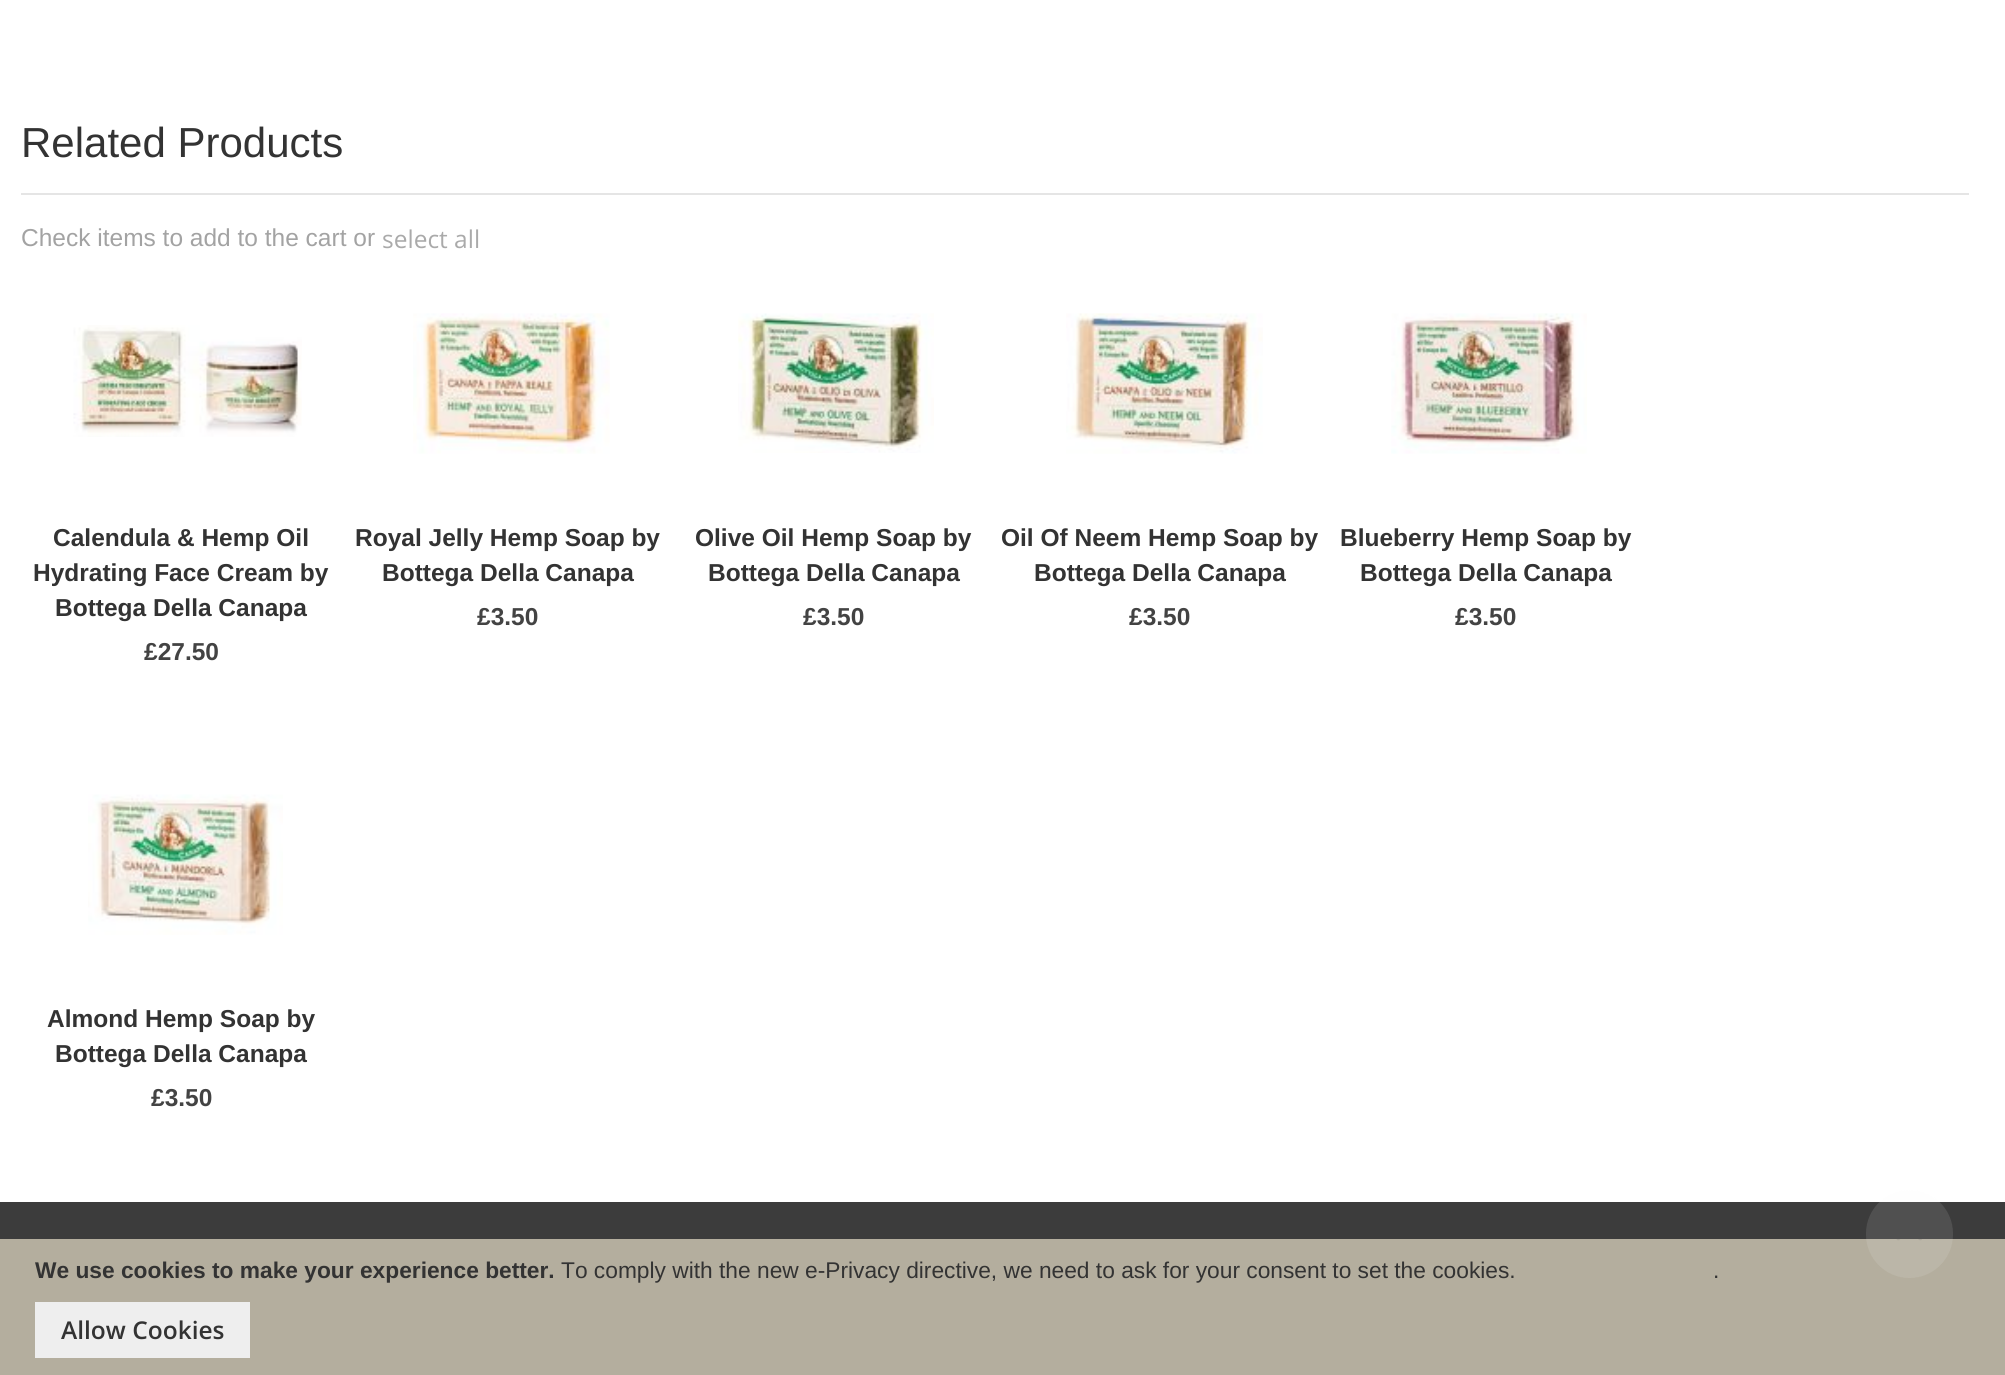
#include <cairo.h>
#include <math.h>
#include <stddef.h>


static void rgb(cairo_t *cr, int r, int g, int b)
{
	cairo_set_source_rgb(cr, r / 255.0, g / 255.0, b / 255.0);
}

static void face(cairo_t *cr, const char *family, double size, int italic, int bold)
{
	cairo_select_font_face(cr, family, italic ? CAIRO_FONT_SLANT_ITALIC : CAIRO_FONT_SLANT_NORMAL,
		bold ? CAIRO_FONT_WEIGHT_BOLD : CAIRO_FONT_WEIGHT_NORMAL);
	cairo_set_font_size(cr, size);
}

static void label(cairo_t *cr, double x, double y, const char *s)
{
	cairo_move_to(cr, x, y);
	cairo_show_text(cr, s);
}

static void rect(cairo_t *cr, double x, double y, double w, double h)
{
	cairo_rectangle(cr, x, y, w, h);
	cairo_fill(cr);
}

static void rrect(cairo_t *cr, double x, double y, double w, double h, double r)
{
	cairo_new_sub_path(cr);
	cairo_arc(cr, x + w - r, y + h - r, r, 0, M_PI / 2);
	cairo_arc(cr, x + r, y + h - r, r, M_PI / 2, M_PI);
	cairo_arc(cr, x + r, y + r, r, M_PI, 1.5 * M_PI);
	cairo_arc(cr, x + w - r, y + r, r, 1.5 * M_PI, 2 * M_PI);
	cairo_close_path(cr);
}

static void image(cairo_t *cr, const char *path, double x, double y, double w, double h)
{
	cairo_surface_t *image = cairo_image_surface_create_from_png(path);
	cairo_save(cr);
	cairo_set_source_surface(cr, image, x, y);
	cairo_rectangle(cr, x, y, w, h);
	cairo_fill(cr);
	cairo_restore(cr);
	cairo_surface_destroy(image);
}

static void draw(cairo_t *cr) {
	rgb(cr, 255, 255, 255);
	cairo_paint(cr);
	rgb(cr, 229, 229, 229);
	rect(cr, 21, 193, 1948, 2);
	face(cr, "Liberation Sans", 42, 0, 0);
	rgb(cr, 51, 51, 51);
	label(cr, 21, 157, "Related Products");
	face(cr, "Liberation Sans", 24.5, 0, 0);
	rgb(cr, 163, 163, 163);
	label(cr, 21, 246, "Check items to add to the cart or");
	face(cr, "Open Sans", 24.5, 0, 0);
	rgb(cr, 170, 170, 170);
	label(cr, 382, 248, "select all");
	image(cr, "image0.png", 73, 325, 229, 112);
	face(cr, "Liberation Sans", 24.5, 0, 1);
	rgb(cr, 51, 51, 51);
	label(cr, 53, 546, "Calendula & Hemp Oil");
	label(cr, 33, 581, "Hydrating Face Cream by");
	label(cr, 55, 616, "Bottega Della Canapa");
	rgb(cr, 67, 67, 67);
	label(cr, 144, 660, "£27.50");
	image(cr, "image1.png", 413, 313, 197, 141);
	rgb(cr, 51, 51, 51);
	label(cr, 355, 546, "Royal Jelly Hemp Soap by");
	label(cr, 382, 581, "Bottega Della Canapa");
	rgb(cr, 67, 67, 67);
	label(cr, 477, 625, "£3.50");
	image(cr, "image2.png", 738, 313, 196, 140);
	rgb(cr, 51, 51, 51);
	label(cr, 695, 546, "Olive Oil Hemp Soap by");
	label(cr, 708, 581, "Bottega Della Canapa");
	rgb(cr, 67, 67, 67);
	label(cr, 803, 625, "£3.50");
	image(cr, "image3.png", 1066, 313, 197, 141);
	rgb(cr, 51, 51, 51);
	label(cr, 1001, 546, "Oil Of Neem Hemp Soap by");
	label(cr, 1034, 581, "Bottega Della Canapa");
	rgb(cr, 67, 67, 67);
	label(cr, 1129, 625, "£3.50");
	image(cr, "image4.png", 1391, 313, 196, 141);
	rgb(cr, 51, 51, 51);
	label(cr, 1340, 546, "Blueberry Hemp Soap by");
	label(cr, 1360, 581, "Bottega Della Canapa");
	rgb(cr, 67, 67, 67);
	label(cr, 1455, 625, "£3.50");
	image(cr, "image5.png", 88, 794, 195, 141);
	rgb(cr, 51, 51, 51);
	label(cr, 47, 1027, "Almond Hemp Soap by");
	label(cr, 55, 1062, "Bottega Della Canapa");
	rgb(cr, 67, 67, 67);
	label(cr, 151, 1106, "£3.50");
	rgb(cr, 60, 60, 60);
	rect(cr, 0, 1202, 2005, 37);
	rgb(cr, 180, 174, 158);
	rect(cr, 0, 1239, 2005, 136);
	cairo_set_source_rgba(cr, 0.961, 0.961, 0.961, 0.11);
	rrect(cr, 1866, 1190, 87, 88, 43.5);
	cairo_fill(cr);
	image(cr, "image6.png", 1896, 1239, 26, 2);
	face(cr, "Liberation Sans", 22.75, 0, 1);
	rgb(cr, 51, 51, 51);
	label(cr, 35, 1278, "We use cookies to make your experience better.");
	face(cr, "Liberation Sans", 22.75, 0, 0);
	label(cr, 561, 1278, "To comply with the new e-Privacy directive, we need to ask for your consent to set the cookies.");
	label(cr, 1713, 1278, ".");
	rgb(cr, 238, 238, 238);
	rect(cr, 35, 1302, 215, 56);
	face(cr, "Open Sans SemiBold", 24.5, 0, 0);
	rgb(cr, 51, 51, 51);
	label(cr, 61, 1339, "Allow Cookies");
}

int main(void) {
	cairo_surface_t *surface = cairo_image_surface_create(CAIRO_FORMAT_RGB24, 2005, 1375);
	cairo_t *cr = cairo_create(surface);
	cairo_font_options_t *options = cairo_font_options_create();
	cairo_font_options_set_hint_metrics(options, CAIRO_HINT_METRICS_OFF);
	cairo_font_options_set_hint_style(options, CAIRO_HINT_STYLE_NONE);
	cairo_set_font_options(cr, options);
	cairo_set_miter_limit(cr, 4);
	draw(cr);
	cairo_surface_write_to_png(surface, "render.png");
	cairo_font_options_destroy(options);
	cairo_destroy(cr);
	cairo_surface_destroy(surface);
	return 0;
}
